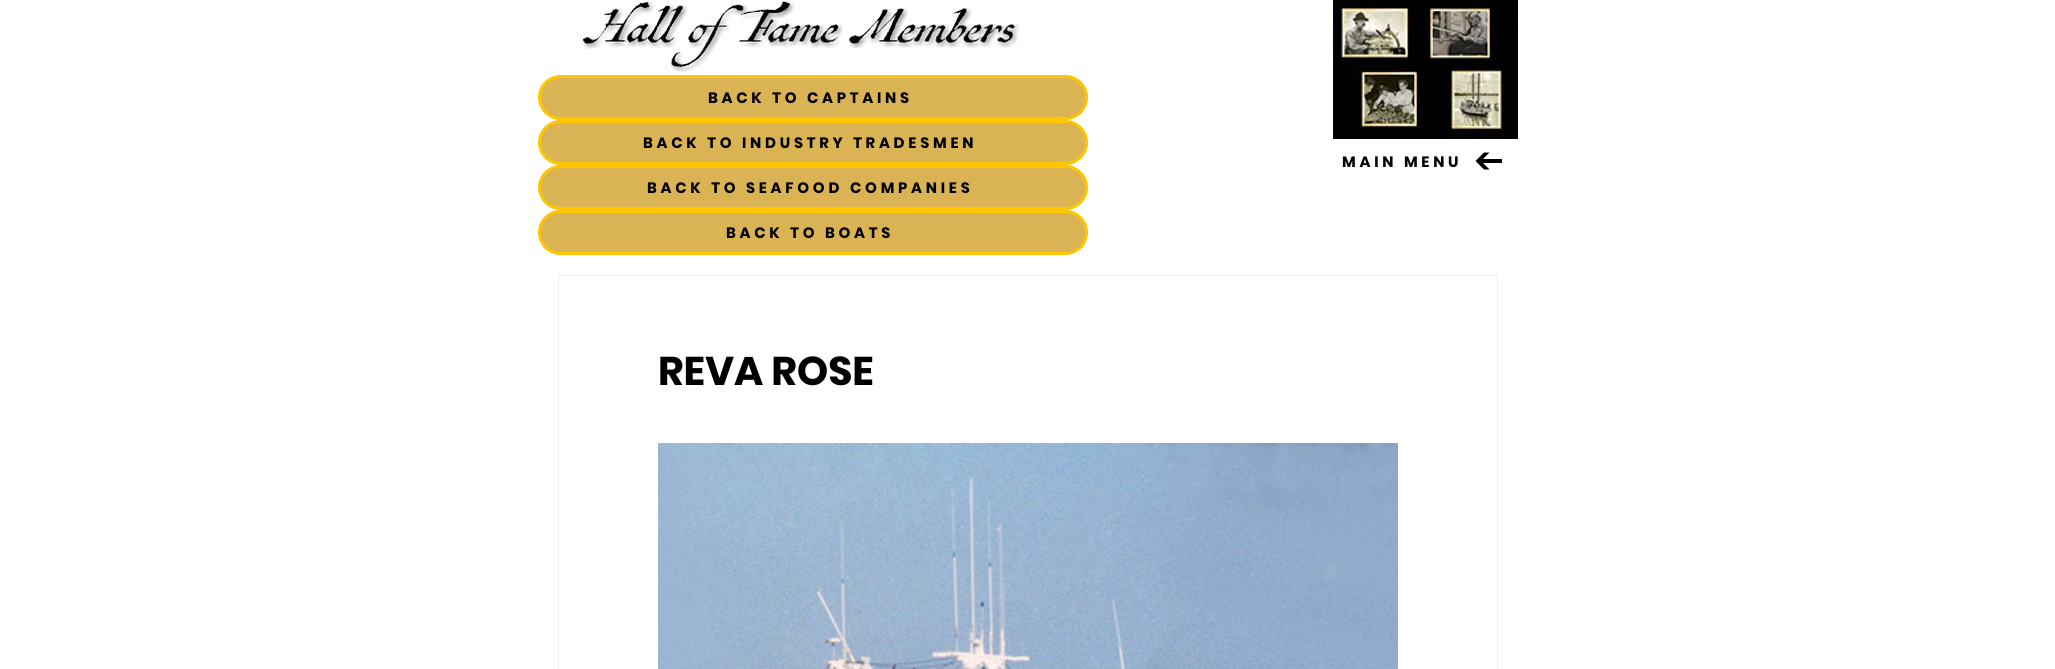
#include <cairo.h>
#include <math.h>
#include <stddef.h>


static void rgb(cairo_t *cr, int r, int g, int b)
{
	cairo_set_source_rgb(cr, r / 255.0, g / 255.0, b / 255.0);
}

static void face(cairo_t *cr, const char *family, double size, int italic, int bold)
{
	cairo_select_font_face(cr, family, italic ? CAIRO_FONT_SLANT_ITALIC : CAIRO_FONT_SLANT_NORMAL,
		bold ? CAIRO_FONT_WEIGHT_BOLD : CAIRO_FONT_WEIGHT_NORMAL);
	cairo_set_font_size(cr, size);
}

static void label(cairo_t *cr, double x, double y, const char *s)
{
	cairo_move_to(cr, x, y);
	cairo_show_text(cr, s);
}

static void tracked(cairo_t *cr, double x, double y, const char *s, double letter, double word)
{
	cairo_move_to(cr, x, y);
	while (*s) {
		char ch[5] = {0};
		int n = 0;
		do ch[n++] = *s++; while ((*s & 0xC0) == 0x80);
		cairo_show_text(cr, ch);
		cairo_rel_move_to(cr, letter + word * (*ch == ' '), 0);
	}
}

static void rrect(cairo_t *cr, double x, double y, double w, double h, double r)
{
	cairo_new_sub_path(cr);
	cairo_arc(cr, x + w - r, y + h - r, r, 0, M_PI / 2);
	cairo_arc(cr, x + r, y + h - r, r, M_PI / 2, M_PI);
	cairo_arc(cr, x + r, y + r, r, M_PI, 1.5 * M_PI);
	cairo_arc(cr, x + w - r, y + r, r, 1.5 * M_PI, 2 * M_PI);
	cairo_close_path(cr);
}

static void image(cairo_t *cr, const char *path, double x, double y, double w, double h)
{
	cairo_surface_t *image = cairo_image_surface_create_from_png(path);
	cairo_save(cr);
	cairo_set_source_surface(cr, image, x, y);
	cairo_rectangle(cr, x, y, w, h);
	cairo_fill(cr);
	cairo_restore(cr);
	cairo_surface_destroy(image);
}

static void draw(cairo_t *cr) {
	rgb(cr, 255, 255, 255);
	cairo_paint(cr);
	image(cr, "image0.png", 582, 1, 437, 71);
	image(cr, "image1.png", 1333, 0, 185, 139);
	rgb(cr, 217, 179, 84);
	rrect(cr, 539.5, 76.5, 547, 42, 21);
	cairo_fill_preserve(cr);
	rgb(cr, 255, 197, 0);
	cairo_set_line_width(cr, 3);
	cairo_stroke(cr);
	face(cr, "Poppins", 15, 0, 1);
	rgb(cr, 0, 0, 0);
	tracked(cr, 708, 103, "BACK TO CAPTAINS", 3.75, 0);
	rgb(cr, 217, 179, 84);
	rrect(cr, 539.5, 121.5, 547, 42, 21);
	cairo_fill_preserve(cr);
	rgb(cr, 255, 197, 0);
	cairo_stroke(cr);
	rgb(cr, 0, 0, 0);
	tracked(cr, 643, 148, "BACK TO INDUSTRY TRADESMEN", 3.75, 0);
	tracked(cr, 1342, 167, "MAIN MENU", 3.75, 0);
	cairo_new_path(cr);
	cairo_move_to(cr, 1484, 152.5);
	cairo_line_to(cr, 1475.5, 161);
	cairo_line_to(cr, 1484, 169.5);
	cairo_line_to(cr, 1489.5, 169.5);
	cairo_line_to(cr, 1483, 163);
	cairo_line_to(cr, 1502, 163);
	cairo_line_to(cr, 1502, 159);
	cairo_line_to(cr, 1483, 159);
	cairo_line_to(cr, 1489.5, 152.5);
	cairo_close_path(cr);
	cairo_fill(cr);
	rgb(cr, 217, 179, 84);
	rrect(cr, 539.5, 166.5, 547, 42, 21);
	cairo_fill_preserve(cr);
	rgb(cr, 255, 197, 0);
	cairo_stroke(cr);
	rgb(cr, 0, 0, 0);
	tracked(cr, 647, 193, "BACK TO SEAFOOD COMPANIES", 3.75, 0);
	rgb(cr, 217, 179, 84);
	rrect(cr, 539.5, 211.5, 547, 42, 21);
	cairo_fill_preserve(cr);
	rgb(cr, 255, 197, 0);
	cairo_stroke(cr);
	rgb(cr, 0, 0, 0);
	tracked(cr, 726, 238, "BACK TO BOATS", 3.75, 0);
	cairo_rectangle(cr, 558.5, 275.5, 939, 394);
	rgb(cr, 238, 236, 236);
	cairo_set_line_width(cr, 1);
	cairo_stroke(cr);
	face(cr, "Poppins", 40, 0, 1);
	rgb(cr, 0, 0, 0);
	label(cr, 658, 385, "REVA ROSE");
	image(cr, "image2.png", 658, 443, 740, 226);
}

int main(void) {
	cairo_surface_t *surface = cairo_image_surface_create(CAIRO_FORMAT_RGB24, 2055, 669);
	cairo_t *cr = cairo_create(surface);
	cairo_font_options_t *options = cairo_font_options_create();
	cairo_font_options_set_hint_metrics(options, CAIRO_HINT_METRICS_OFF);
	cairo_font_options_set_hint_style(options, CAIRO_HINT_STYLE_NONE);
	cairo_set_font_options(cr, options);
	cairo_set_miter_limit(cr, 4);
	draw(cr);
	cairo_surface_write_to_png(surface, "render.png");
	cairo_font_options_destroy(options);
	cairo_destroy(cr);
	cairo_surface_destroy(surface);
	return 0;
}
